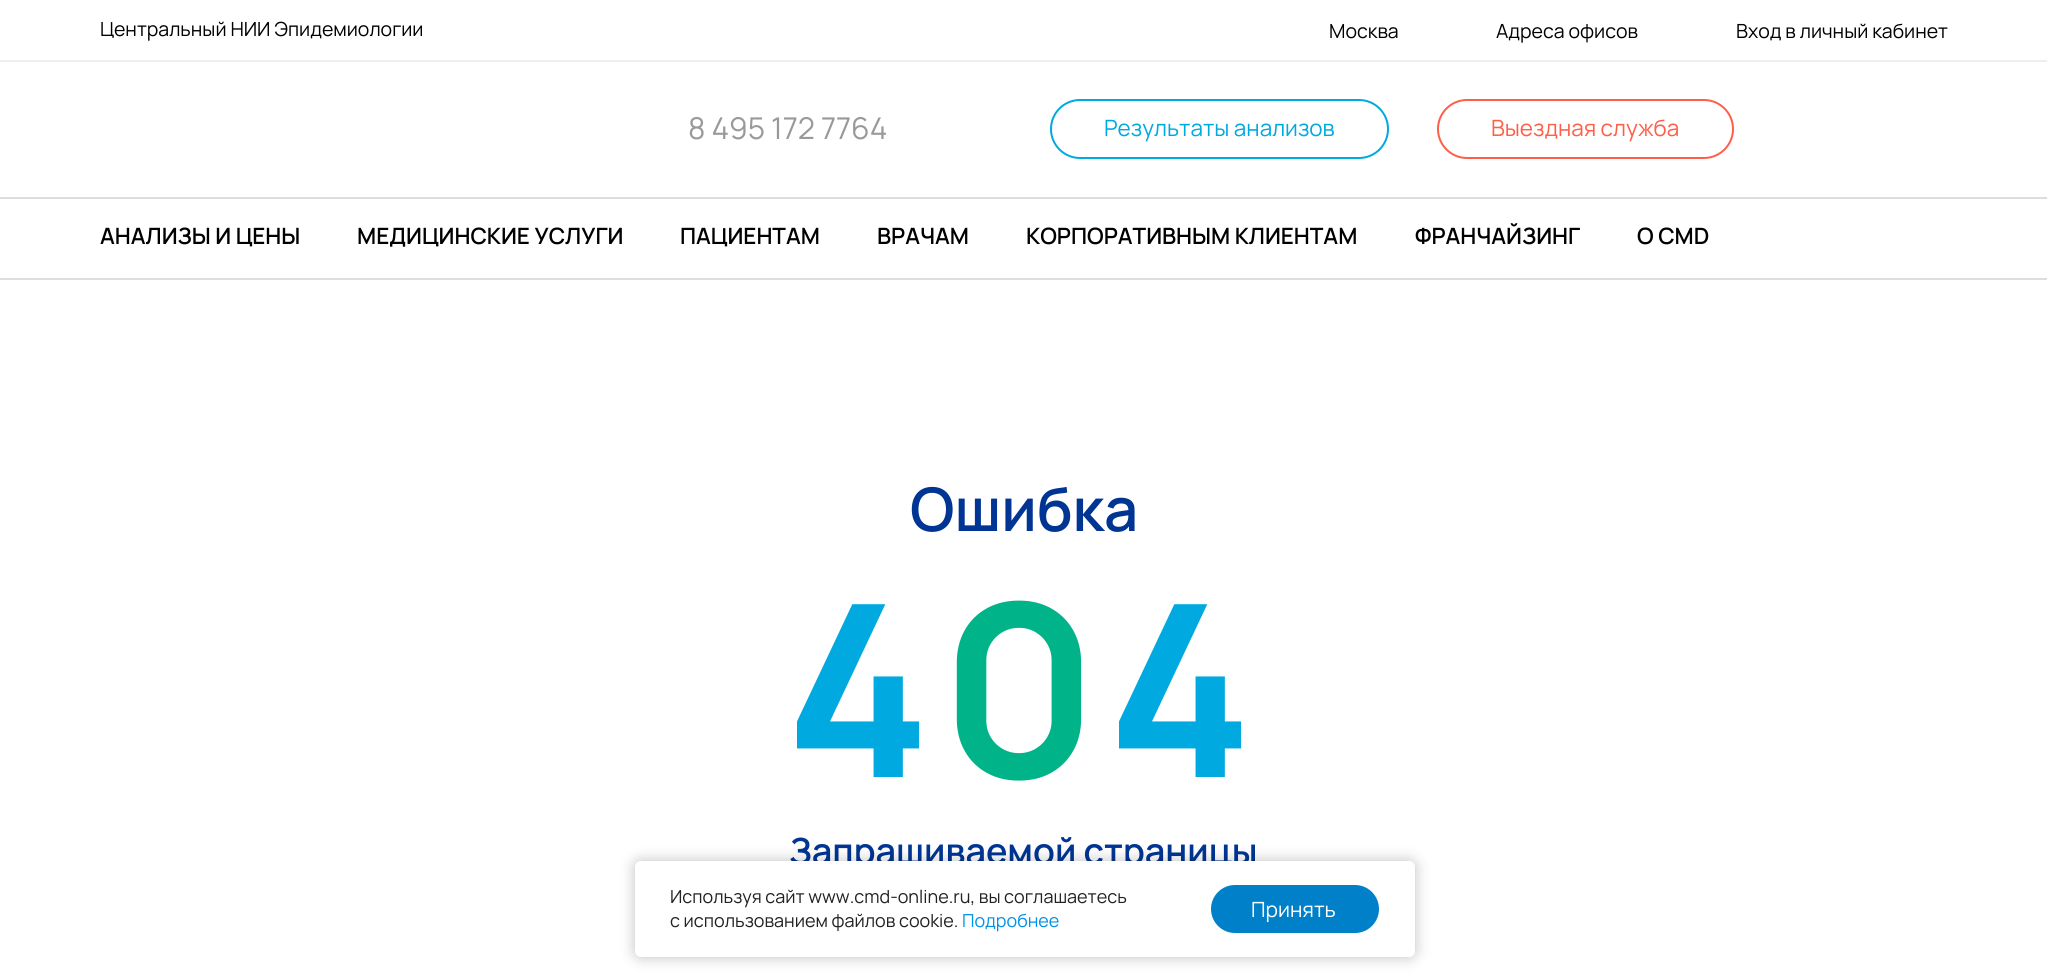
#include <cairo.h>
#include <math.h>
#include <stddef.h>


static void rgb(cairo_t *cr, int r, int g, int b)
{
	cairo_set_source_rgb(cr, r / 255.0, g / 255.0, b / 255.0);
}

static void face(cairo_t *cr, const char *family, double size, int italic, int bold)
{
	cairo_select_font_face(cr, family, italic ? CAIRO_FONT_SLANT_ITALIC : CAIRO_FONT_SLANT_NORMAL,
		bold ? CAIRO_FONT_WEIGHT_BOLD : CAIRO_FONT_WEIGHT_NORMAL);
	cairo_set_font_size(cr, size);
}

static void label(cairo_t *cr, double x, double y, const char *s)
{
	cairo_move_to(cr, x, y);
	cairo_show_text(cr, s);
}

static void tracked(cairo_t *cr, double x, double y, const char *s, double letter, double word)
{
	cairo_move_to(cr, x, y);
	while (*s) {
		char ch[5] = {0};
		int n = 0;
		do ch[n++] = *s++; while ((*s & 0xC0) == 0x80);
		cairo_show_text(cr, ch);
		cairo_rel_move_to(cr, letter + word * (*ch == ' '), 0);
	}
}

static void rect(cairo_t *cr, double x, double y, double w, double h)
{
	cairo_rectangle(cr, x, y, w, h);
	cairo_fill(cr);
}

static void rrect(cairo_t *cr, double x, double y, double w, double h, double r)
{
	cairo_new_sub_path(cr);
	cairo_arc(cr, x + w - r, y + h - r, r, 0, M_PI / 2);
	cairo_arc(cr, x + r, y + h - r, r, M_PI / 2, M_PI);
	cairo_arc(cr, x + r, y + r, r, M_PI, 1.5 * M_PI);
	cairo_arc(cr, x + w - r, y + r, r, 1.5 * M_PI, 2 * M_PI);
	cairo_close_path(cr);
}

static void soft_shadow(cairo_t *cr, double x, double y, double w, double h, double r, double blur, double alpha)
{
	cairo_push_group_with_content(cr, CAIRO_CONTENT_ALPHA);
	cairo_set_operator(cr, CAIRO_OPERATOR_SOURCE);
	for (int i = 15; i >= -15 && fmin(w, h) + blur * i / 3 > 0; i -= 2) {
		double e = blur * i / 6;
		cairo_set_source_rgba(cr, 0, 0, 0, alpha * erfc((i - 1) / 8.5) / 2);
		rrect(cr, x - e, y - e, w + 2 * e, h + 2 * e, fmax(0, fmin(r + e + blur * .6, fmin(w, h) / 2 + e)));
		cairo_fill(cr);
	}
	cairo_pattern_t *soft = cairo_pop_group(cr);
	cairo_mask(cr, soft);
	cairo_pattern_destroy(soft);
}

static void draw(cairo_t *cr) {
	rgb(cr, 255, 255, 255);
	cairo_paint(cr);
	rgb(cr, 238, 238, 238);
	rect(cr, 0, 60, 2047, 2);
	face(cr, "Manrope", 19.5, 0, 0);
	rgb(cr, 0, 0, 0);
	label(cr, 100, 36, "Центральный НИИ Эпидемиологии");
	label(cr, 1329, 38, "Москва");
	label(cr, 1496, 38, "Адреса офисов");
	label(cr, 1736, 38, "Вход в личный кабинет");
	rgb(cr, 221, 221, 221);
	rect(cr, 0, 197, 2047, 2);
	face(cr, "Manrope", 30, 0, 0);
	rgb(cr, 153, 153, 153);
	label(cr, 688, 139, "8 495 172 7764");
	rrect(cr, 1051, 100, 337, 58, 29);
	rgb(cr, 0, 169, 224);
	cairo_stroke(cr);
	face(cr, "Manrope", 22.5, 0, 0);
	label(cr, 1104, 136, "Результаты анализов");
	rrect(cr, 1438, 100, 295, 58, 29);
	rgb(cr, 255, 95, 73);
	cairo_stroke(cr);
	label(cr, 1491, 136, "Выездная служба");
	rgb(cr, 221, 221, 221);
	rect(cr, 0, 278, 2047, 2);
	face(cr, "Manrope SemiBold", 22.5, 0, 0);
	rgb(cr, 0, 0, 0);
	label(cr, 100, 244, "АНАЛИЗЫ И ЦЕНЫ");
	label(cr, 357, 244, "МЕДИЦИНСКИЕ УСЛУГИ");
	label(cr, 680, 244, "ПАЦИЕНТАМ");
	label(cr, 877, 244, "ВРАЧАМ");
	label(cr, 1026, 244, "КОРПОРАТИВНЫМ КЛИЕНТАМ");
	label(cr, 1415, 244, "ФРАНЧАЙЗИНГ");
	label(cr, 1637, 244, "О CMD");
	face(cr, "Manrope SemiBold", 60, 0, 0);
	rgb(cr, 0, 53, 148);
	label(cr, 910, 531, "Ошибка");
	face(cr, "Manrope", 240, 0, 1);
	rgb(cr, 0, 169, 224);
	tracked(cr, 785, 777, "4", 9, 0);
	rgb(cr, 0, 179, 136);
	tracked(cr, 940, 777, "0", 9, 0);
	rgb(cr, 0, 169, 224);
	tracked(cr, 1107, 777, "4", 9, 0);
	face(cr, "Manrope SemiBold", 36, 0, 0);
	rgb(cr, 0, 53, 148);
	label(cr, 789, 864, "Запрашиваемой страницы");
	rgb(cr, 0, 0, 0);
	soft_shadow(cr, 635, 861, 780, 96, 6, 7.5, 0.25);
	rgb(cr, 255, 255, 255);
	rrect(cr, 635, 861, 780, 96, 6);
	cairo_fill(cr);
	face(cr, "Manrope", 18, 0, 0);
	rgb(cr, 34, 34, 34);
	label(cr, 670, 903, "Используя сайт www.cmd-online.ru, вы соглашаетесь");
	label(cr, 670, 927, "с использованием файлов cookie.");
	rgb(cr, 0, 146, 230);
	label(cr, 962, 927, "Подробнее");
	rgb(cr, 0, 128, 201);
	rrect(cr, 1211, 885, 168, 48, 24);
	cairo_fill(cr);
	face(cr, "Manrope", 21, 0, 0);
	rgb(cr, 255, 255, 255);
	label(cr, 1251, 917, "Принять");
}

int main(void) {
	cairo_surface_t *surface = cairo_image_surface_create(CAIRO_FORMAT_RGB24, 2047, 980);
	cairo_t *cr = cairo_create(surface);
	cairo_font_options_t *options = cairo_font_options_create();
	cairo_font_options_set_hint_metrics(options, CAIRO_HINT_METRICS_OFF);
	cairo_font_options_set_hint_style(options, CAIRO_HINT_STYLE_NONE);
	cairo_set_font_options(cr, options);
	cairo_set_miter_limit(cr, 4);
	draw(cr);
	cairo_surface_write_to_png(surface, "render.png");
	cairo_font_options_destroy(options);
	cairo_destroy(cr);
	cairo_surface_destroy(surface);
	return 0;
}
